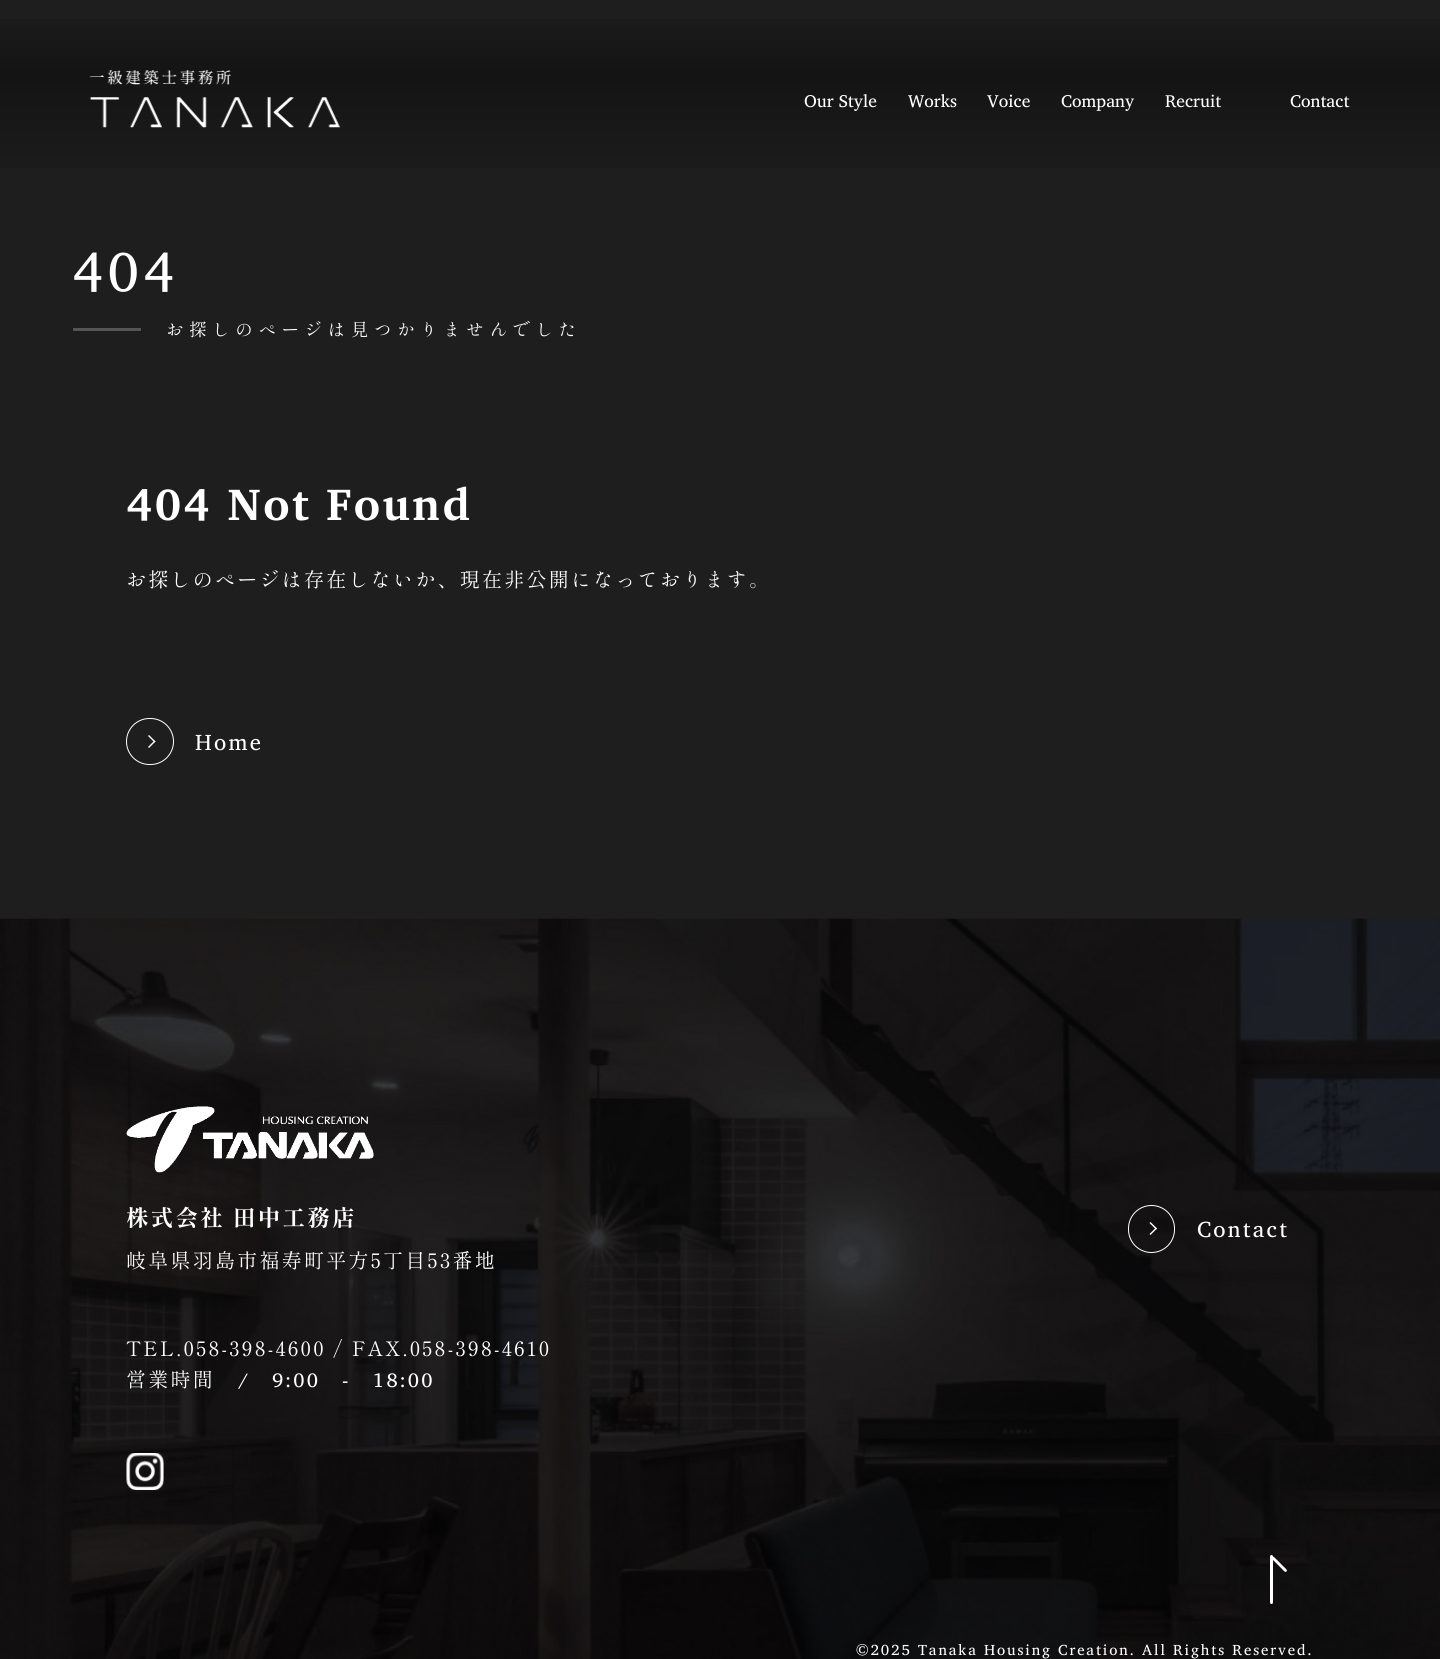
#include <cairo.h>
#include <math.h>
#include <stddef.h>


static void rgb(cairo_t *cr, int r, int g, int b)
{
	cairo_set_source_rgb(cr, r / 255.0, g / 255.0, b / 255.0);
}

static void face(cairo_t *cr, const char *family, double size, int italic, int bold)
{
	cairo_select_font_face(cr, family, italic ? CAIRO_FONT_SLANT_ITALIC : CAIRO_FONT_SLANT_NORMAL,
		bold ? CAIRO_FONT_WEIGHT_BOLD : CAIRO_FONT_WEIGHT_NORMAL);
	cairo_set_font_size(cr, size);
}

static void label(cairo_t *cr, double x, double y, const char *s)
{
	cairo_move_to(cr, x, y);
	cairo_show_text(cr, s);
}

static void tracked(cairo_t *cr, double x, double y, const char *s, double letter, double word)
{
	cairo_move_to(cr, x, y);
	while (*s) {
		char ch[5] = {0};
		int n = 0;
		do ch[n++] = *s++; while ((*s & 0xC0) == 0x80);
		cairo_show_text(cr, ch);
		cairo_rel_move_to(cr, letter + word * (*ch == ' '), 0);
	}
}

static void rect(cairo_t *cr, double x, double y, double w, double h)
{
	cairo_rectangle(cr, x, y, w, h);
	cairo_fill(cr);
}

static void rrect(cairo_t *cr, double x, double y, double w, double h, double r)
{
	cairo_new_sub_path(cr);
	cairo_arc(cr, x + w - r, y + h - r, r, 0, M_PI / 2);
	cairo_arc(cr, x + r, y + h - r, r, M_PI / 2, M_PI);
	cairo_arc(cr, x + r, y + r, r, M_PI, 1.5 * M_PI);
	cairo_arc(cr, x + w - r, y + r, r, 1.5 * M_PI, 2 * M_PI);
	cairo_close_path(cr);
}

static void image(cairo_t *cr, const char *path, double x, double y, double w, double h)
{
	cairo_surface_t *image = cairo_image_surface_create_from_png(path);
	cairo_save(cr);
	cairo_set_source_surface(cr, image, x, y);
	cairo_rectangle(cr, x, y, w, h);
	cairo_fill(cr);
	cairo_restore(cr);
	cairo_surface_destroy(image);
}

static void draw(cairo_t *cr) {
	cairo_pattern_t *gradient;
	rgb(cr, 30, 30, 30);
	cairo_paint(cr);
	gradient = cairo_pattern_create_linear(720, 0, 720, 200);
	cairo_pattern_add_color_stop_rgba(gradient, 0, 0.118, 0.118, 0.118, 1);
	cairo_pattern_add_color_stop_rgba(gradient, 0.37, 0.078, 0.078, 0.078, 1);
	cairo_pattern_add_color_stop_rgba(gradient, 1, 0.118, 0.118, 0.118, 1);
	cairo_set_source(cr, gradient);
	cairo_pattern_destroy(gradient);
	rect(cr, 0, 19, 1440, 149);
	image(cr, "image0.png", 89, 70, 251, 58);
	face(cr, "Charis SIL", 17.5, 0, 0);
	rgb(cr, 255, 255, 255);
	label(cr, 804, 107, "Our Style");
	label(cr, 908, 107, "Works");
	label(cr, 987, 107, "Voice");
	label(cr, 1061, 107, "Company");
	label(cr, 1165, 107, "Recruit");
	label(cr, 1290, 107, "Contact");
	face(cr, "Charis SIL", 56, 0, 0);
	tracked(cr, 72, 291, "404", 4, 0);
	rgb(cr, 85, 85, 85);
	rect(cr, 73, 328, 68, 3);
	face(cr, "Shippori Mincho", 17.5, 0, 0);
	rgb(cr, 255, 255, 255);
	tracked(cr, 166, 336, "お探しのぺージは見つかりませんでした", 5.6, 0);
	face(cr, "Charis SIL", 45, 0, 1);
	tracked(cr, 126, 520, "404 Not Found", 2.25, 0);
	face(cr, "Shippori Mincho", 20, 0, 0);
	tracked(cr, 126, 587, "お探しのぺージは存在しないか、現在非公開になっております。", 2.25, 0);
	rrect(cr, 126.5, 718.5, 47, 46, 23);
	cairo_set_line_width(cr, 1);
	cairo_stroke(cr);
	face(cr, "Charis SIL", 22.5, 0, 0);
	tracked(cr, 195, 750, "Home", 2.25, 0);
	cairo_new_path(cr);
	cairo_move_to(cr, 149, 735);
	cairo_line_to(cr, 155.5, 741.5);
	cairo_line_to(cr, 154.5, 742.5);
	cairo_line_to(cr, 148, 736);
	cairo_close_path(cr);
	cairo_fill(cr);
	cairo_new_path(cr);
	cairo_move_to(cr, 154.5, 740.5);
	cairo_line_to(cr, 155.5, 741.5);
	cairo_line_to(cr, 149, 748);
	cairo_line_to(cr, 148, 747);
	cairo_close_path(cr);
	cairo_fill(cr);
	image(cr, "image1.png", 0, 918, 1440, 741);
	image(cr, "image2.png", 126, 1106, 248, 67);
	face(cr, "Shippori Mincho", 22.5, 0, 1);
	tracked(cr, 126, 1226, "株式会社 田中工務店", 2.25, 0);
	face(cr, "Shippori Mincho", 20, 0, 0);
	tracked(cr, 126, 1268, "岐阜県羽島市福寿町平方5丁目53番地", 2.25, 0);
	tracked(cr, 126, 1356, "TEL.058-398-4600 / FAX.058-398-4610", 2.25, 0);
	tracked(cr, 126, 1387, "営業時間", 2.25, 0);
	face(cr, "Charis SIL", 20, 0, 0);
	tracked(cr, 238, 1387, "/", 2.25, 0);
	tracked(cr, 272, 1387, "9:00", 2.25, 0);
	tracked(cr, 342, 1387, "-", 2.25, 0);
	tracked(cr, 373, 1387, "18:00", 2.25, 0);
	image(cr, "image3.png", 126, 1453, 38, 37);
	rrect(cr, 1128.5, 1205.5, 46, 47, 23);
	cairo_stroke(cr);
	face(cr, "Charis SIL", 22.5, 0, 0);
	tracked(cr, 1197, 1237, "Contact", 2.25, 0);
	cairo_new_path(cr);
	cairo_move_to(cr, 1150.5, 1222);
	cairo_line_to(cr, 1157, 1228.5);
	cairo_line_to(cr, 1156, 1229.5);
	cairo_line_to(cr, 1149.5, 1223);
	cairo_close_path(cr);
	cairo_fill(cr);
	cairo_new_path(cr);
	cairo_move_to(cr, 1156, 1227.5);
	cairo_line_to(cr, 1157, 1228.5);
	cairo_line_to(cr, 1150.5, 1235);
	cairo_line_to(cr, 1149.5, 1234);
	cairo_close_path(cr);
	cairo_fill(cr);
	cairo_new_path(cr);
	cairo_move_to(cr, 1272, 1557);
	cairo_curve_to(cr, 1272.5, 1556.5, 1273.5, 1556.5, 1274, 1557);
	cairo_line_to(cr, 1286.5, 1569.5);
	cairo_curve_to(cr, 1287, 1570, 1287, 1571, 1286.5, 1571.5);
	cairo_curve_to(cr, 1286, 1572, 1285, 1572, 1284.5, 1571.5);
	cairo_line_to(cr, 1272, 1559);
	cairo_curve_to(cr, 1272, 1558.5, 1272, 1557.5, 1272, 1557);
	cairo_close_path(cr);
	cairo_fill(cr);
	rrect(cr, 1270, 1555, 3, 49, 1.5);
	cairo_fill(cr);
	face(cr, "Charis SIL", 15, 0, 0);
	tracked(cr, 856, 1655, "©2025 Tanaka Housing Creation. All Rights Reserved.", 1.88, 0);
}

int main(void) {
	cairo_surface_t *surface = cairo_image_surface_create(CAIRO_FORMAT_RGB24, 1440, 1659);
	cairo_t *cr = cairo_create(surface);
	cairo_font_options_t *options = cairo_font_options_create();
	cairo_font_options_set_hint_metrics(options, CAIRO_HINT_METRICS_OFF);
	cairo_font_options_set_hint_style(options, CAIRO_HINT_STYLE_NONE);
	cairo_set_font_options(cr, options);
	cairo_set_miter_limit(cr, 4);
	draw(cr);
	cairo_surface_write_to_png(surface, "render.png");
	cairo_font_options_destroy(options);
	cairo_destroy(cr);
	cairo_surface_destroy(surface);
	return 0;
}
